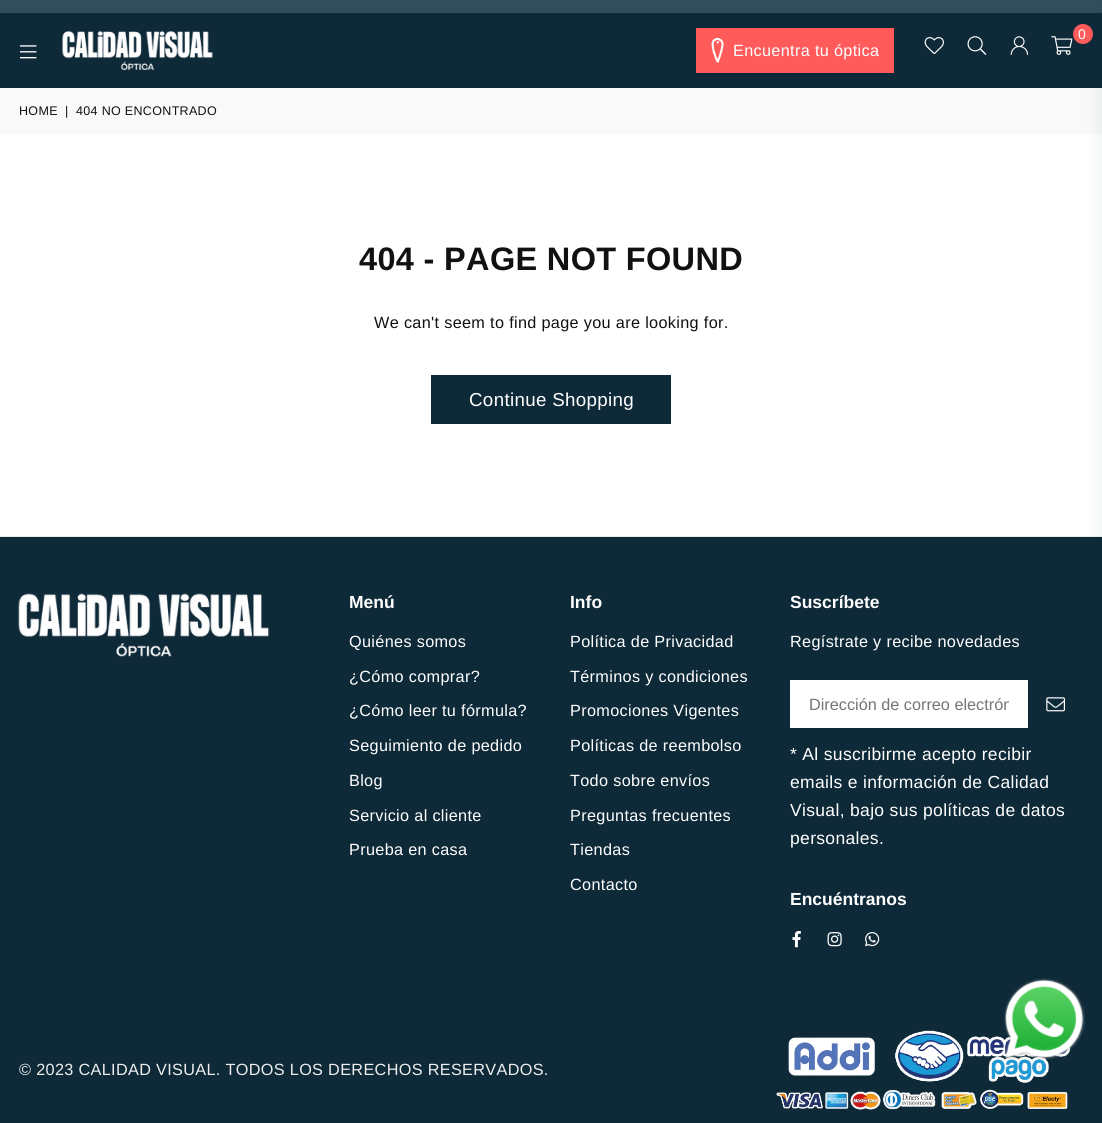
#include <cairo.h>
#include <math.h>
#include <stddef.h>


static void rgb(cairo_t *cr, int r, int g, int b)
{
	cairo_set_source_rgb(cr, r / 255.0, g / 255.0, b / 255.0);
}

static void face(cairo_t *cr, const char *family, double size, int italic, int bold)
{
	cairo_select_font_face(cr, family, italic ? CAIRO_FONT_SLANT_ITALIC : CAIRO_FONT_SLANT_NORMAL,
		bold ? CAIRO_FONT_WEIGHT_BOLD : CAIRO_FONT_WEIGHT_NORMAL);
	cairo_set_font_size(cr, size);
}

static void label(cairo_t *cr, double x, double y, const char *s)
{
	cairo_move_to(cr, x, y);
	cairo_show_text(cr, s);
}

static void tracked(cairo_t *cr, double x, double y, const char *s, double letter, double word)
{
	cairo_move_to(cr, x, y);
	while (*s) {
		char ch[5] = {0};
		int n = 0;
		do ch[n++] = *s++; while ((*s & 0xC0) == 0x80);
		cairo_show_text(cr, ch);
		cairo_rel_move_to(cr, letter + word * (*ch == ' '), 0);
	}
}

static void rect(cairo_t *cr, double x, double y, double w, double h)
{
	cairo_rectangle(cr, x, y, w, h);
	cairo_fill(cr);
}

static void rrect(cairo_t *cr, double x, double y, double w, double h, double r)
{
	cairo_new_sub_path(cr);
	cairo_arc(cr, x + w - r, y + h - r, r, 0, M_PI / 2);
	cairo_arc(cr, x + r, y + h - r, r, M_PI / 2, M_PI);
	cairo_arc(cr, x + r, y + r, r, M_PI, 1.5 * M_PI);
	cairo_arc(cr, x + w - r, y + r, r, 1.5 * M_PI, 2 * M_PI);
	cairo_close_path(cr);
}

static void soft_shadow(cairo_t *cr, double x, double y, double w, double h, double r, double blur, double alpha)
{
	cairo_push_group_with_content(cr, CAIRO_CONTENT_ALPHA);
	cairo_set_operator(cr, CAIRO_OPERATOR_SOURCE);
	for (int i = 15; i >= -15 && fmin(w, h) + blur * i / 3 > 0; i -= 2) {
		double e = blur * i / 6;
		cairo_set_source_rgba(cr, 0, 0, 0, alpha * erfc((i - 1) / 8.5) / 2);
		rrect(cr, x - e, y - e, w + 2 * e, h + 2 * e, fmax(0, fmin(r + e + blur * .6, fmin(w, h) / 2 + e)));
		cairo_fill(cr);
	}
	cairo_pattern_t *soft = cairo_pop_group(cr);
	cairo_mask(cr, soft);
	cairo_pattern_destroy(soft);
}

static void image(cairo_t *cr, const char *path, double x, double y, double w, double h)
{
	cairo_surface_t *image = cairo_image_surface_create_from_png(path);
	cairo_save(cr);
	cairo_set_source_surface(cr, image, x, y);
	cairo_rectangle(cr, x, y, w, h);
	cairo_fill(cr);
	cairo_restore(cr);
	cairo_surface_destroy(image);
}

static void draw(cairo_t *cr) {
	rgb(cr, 255, 255, 255);
	cairo_paint(cr);
	rgb(cr, 50, 78, 93);
	rect(cr, 0, 0, 1102, 13);
	rgb(cr, 14, 41, 56);
	rect(cr, 0, 13, 1102, 75);
	image(cr, "image0.png", 20, 45, 17, 14);
	image(cr, "image1.png", 62, 31, 151, 39);
	rgb(cr, 255, 91, 91);
	cairo_arc(cr, 1083, 34, 10, 0, 2 * M_PI);
	cairo_fill(cr);
	face(cr, "Liberation Sans", 14, 0, 0);
	rgb(cr, 255, 255, 255);
	tracked(cr, 1078, 39, "0", 0.33, 0);
	image(cr, "image2.png", 1051, 36, 22, 19);
	rgb(cr, 255, 91, 91);
	rect(cr, 696, 28, 198, 45);
	image(cr, "image3.png", 711, 37, 13, 26);
	face(cr, "Liberation Sans", 16.25, 0, 0);
	rgb(cr, 255, 255, 255);
	tracked(cr, 733, 56, "Encuentra tu óptica", 0.33, 0);
	image(cr, "image4.png", 924, 37, 20, 17);
	image(cr, "image5.png", 967, 36, 20, 19);
	image(cr, "image6.png", 1010, 36, 19, 19);
	rgb(cr, 249, 249, 249);
	rect(cr, 0, 88, 1102, 46);
	rgb(cr, 14, 41, 56);
	rect(cr, 0, 537, 1102, 586);
	rgb(cr, 238, 238, 238);
	rect(cr, 0, 536, 1102, 1);
	rgb(cr, 14, 41, 56);
	soft_shadow(cr, 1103, 0, 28, 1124, 0, 9.5, 0.1);
	face(cr, "Liberation Sans", 12.5, 0, 0);
	rgb(cr, 17, 17, 17);
	tracked(cr, 19, 115, "HOME", 0.33, 0);
	tracked(cr, 65, 115, "|", 0.33, 0);
	tracked(cr, 76, 115, "404 NO ENCONTRADO", 0.33, 0);
	face(cr, "Liberation Sans", 32.5, 0, 1);
	tracked(cr, 359, 270, "404 - PAGE NOT FOUND", 0.33, 0);
	face(cr, "Liberation Sans", 16.25, 0, 0);
	tracked(cr, 374, 328, "We can't seem to find page you are looking for.", 0.33, 0);
	rgb(cr, 14, 41, 56);
	rect(cr, 431, 375, 240, 49);
	face(cr, "Liberation Sans", 18.75, 0, 0);
	rgb(cr, 255, 255, 255);
	tracked(cr, 469, 406, "Continue Shopping", 0.33, 0);
	image(cr, "image7.png", 18, 593, 251, 64);
	face(cr, "Liberation Sans", 17.5, 0, 1);
	label(cr, 349, 608, "Menú");
	face(cr, "Liberation Sans", 16.25, 0, 0);
	tracked(cr, 349, 647, "Quiénes somos", 0.33, 0);
	tracked(cr, 349, 682, "¿Cómo comprar?", 0.33, 0);
	tracked(cr, 349, 716, "¿Cómo leer tu fórmula?", 0.33, 0);
	tracked(cr, 349, 751, "Seguimiento de pedido", 0.33, 0);
	tracked(cr, 349, 786, "Blog", 0.33, 0);
	tracked(cr, 349, 821, "Servicio al cliente", 0.33, 0);
	tracked(cr, 349, 855, "Prueba en casa", 0.33, 0);
	face(cr, "Liberation Sans", 17.5, 0, 1);
	label(cr, 570, 608, "Info");
	face(cr, "Liberation Sans", 16.25, 0, 0);
	tracked(cr, 570, 647, "Política de Privacidad", 0.33, 0);
	tracked(cr, 570, 682, "Términos y condiciones", 0.33, 0);
	tracked(cr, 570, 716, "Promociones Vigentes", 0.33, 0);
	tracked(cr, 570, 751, "Políticas de reembolso", 0.33, 0);
	tracked(cr, 570, 786, "Todo sobre envíos", 0.33, 0);
	tracked(cr, 570, 821, "Preguntas frecuentes", 0.33, 0);
	tracked(cr, 570, 855, "Tiendas", 0.33, 0);
	tracked(cr, 570, 890, "Contacto", 0.33, 0);
	face(cr, "Liberation Sans", 17.5, 0, 1);
	label(cr, 790, 608, "Suscríbete");
	face(cr, "Liberation Sans", 16.25, 0, 0);
	tracked(cr, 790, 647, "Regístrate y recibe novedades", 0.33, 0);
	rect(cr, 790, 680, 238, 48);
	cairo_save(cr);
	cairo_rectangle(cr, 809, 695, 200, 19);
	cairo_clip(cr);
	rgb(cr, 117, 117, 117);
	label(cr, 809, 710, "Dirección de correo electrón");
	cairo_restore(cr);
	image(cr, "image8.png", 1046, 697, 19, 15);
	face(cr, "Liberation Sans", 17.5, 0, 0);
	tracked(cr, 790, 760, "* Al suscribirme acepto recibir", 0.33, 0);
	tracked(cr, 790, 788, "emails e información de Calidad", 0.33, 0);
	tracked(cr, 790, 816, "Visual, bajo sus políticas de datos", 0.33, 0);
	tracked(cr, 790, 844, "personales.", 0.33, 0);
	face(cr, "Liberation Sans", 17.5, 0, 1);
	label(cr, 790, 905, "Encuéntranos");
	image(cr, "image9.png", 792, 931, 9, 17);
	image(cr, "image10.png", 827, 932, 15, 15);
	image(cr, "image11.png", 865, 932, 15, 15);
	face(cr, "Liberation Sans", 16.25, 0, 0);
	rgb(cr, 238, 238, 238);
	tracked(cr, 19, 1075, "© 2023 CALIDAD VISUAL. TODOS LOS DERECHOS RESERVADOS.", 0.33, 0);
	image(cr, "image12.png", 776, 1030, 294, 80);
	image(cr, "image13.png", 1003, 978, 83, 82);
}

int main(void) {
	cairo_surface_t *surface = cairo_image_surface_create(CAIRO_FORMAT_RGB24, 1102, 1123);
	cairo_t *cr = cairo_create(surface);
	cairo_font_options_t *options = cairo_font_options_create();
	cairo_font_options_set_hint_metrics(options, CAIRO_HINT_METRICS_OFF);
	cairo_font_options_set_hint_style(options, CAIRO_HINT_STYLE_NONE);
	cairo_set_font_options(cr, options);
	cairo_set_miter_limit(cr, 4);
	draw(cr);
	cairo_surface_write_to_png(surface, "render.png");
	cairo_font_options_destroy(options);
	cairo_destroy(cr);
	cairo_surface_destroy(surface);
	return 0;
}
